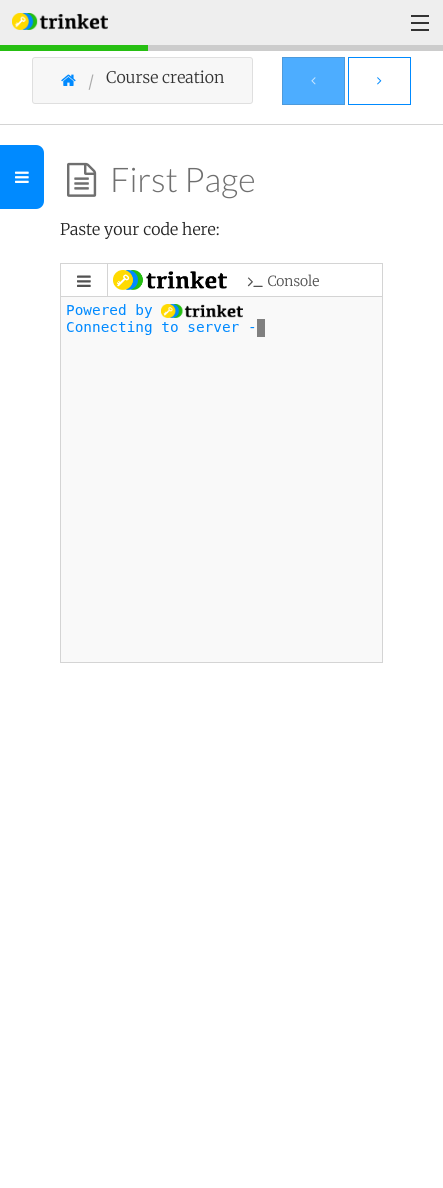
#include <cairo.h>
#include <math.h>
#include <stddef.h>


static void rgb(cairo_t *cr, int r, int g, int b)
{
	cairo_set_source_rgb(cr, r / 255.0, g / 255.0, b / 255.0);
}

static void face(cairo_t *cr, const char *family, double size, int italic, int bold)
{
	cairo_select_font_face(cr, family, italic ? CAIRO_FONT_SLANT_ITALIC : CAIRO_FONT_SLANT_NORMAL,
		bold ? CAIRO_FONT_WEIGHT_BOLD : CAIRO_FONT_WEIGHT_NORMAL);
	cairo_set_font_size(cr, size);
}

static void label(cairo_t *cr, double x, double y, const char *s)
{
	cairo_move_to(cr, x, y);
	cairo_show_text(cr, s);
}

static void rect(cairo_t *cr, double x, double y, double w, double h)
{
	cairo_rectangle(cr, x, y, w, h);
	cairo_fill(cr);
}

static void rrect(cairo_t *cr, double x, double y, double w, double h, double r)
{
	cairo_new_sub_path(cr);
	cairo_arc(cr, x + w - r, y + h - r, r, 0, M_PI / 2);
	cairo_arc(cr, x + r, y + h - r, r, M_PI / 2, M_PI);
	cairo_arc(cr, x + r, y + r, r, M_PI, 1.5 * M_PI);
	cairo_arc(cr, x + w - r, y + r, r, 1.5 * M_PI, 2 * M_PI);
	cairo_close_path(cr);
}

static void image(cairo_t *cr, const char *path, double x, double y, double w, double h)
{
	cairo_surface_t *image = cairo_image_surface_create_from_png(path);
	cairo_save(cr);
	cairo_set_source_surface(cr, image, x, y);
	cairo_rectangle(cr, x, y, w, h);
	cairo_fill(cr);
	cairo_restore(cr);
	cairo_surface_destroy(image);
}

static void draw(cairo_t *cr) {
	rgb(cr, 255, 255, 255);
	cairo_paint(cr);
	rgb(cr, 238, 238, 238);
	rect(cr, 0, 0, 443, 45);
	image(cr, "image0.png", 12, 13, 96, 17);
	rgb(cr, 51, 51, 51);
	rect(cr, 411, 29, 18, 2);
	rect(cr, 411, 22, 18, 2);
	rect(cr, 411, 15, 18, 2);
	rgb(cr, 212, 212, 212);
	rect(cr, 0, 124, 443, 1);
	rgb(cr, 204, 204, 204);
	rect(cr, 148, 45, 295, 6);
	rgb(cr, 38, 191, 18);
	rect(cr, 0, 45, 148, 6);
	rgb(cr, 247, 247, 247);
	rrect(cr, 32.5, 57.5, 220, 46, 2.5);
	cairo_fill_preserve(cr);
	rgb(cr, 223, 223, 223);
	cairo_set_line_width(cr, 1);
	cairo_stroke(cr);
	image(cr, "image1.png", 61, 74, 15, 12);
	face(cr, "Merriweather Light", 16, 0, 0);
	rgb(cr, 170, 170, 170);
	label(cr, 88, 87, "/");
	rgb(cr, 51, 51, 51);
	label(cr, 106, 83, "Course creation");
	rgb(cr, 77, 173, 255);
	cairo_rectangle(cr, 282.5, 57.5, 62, 47);
	cairo_fill_preserve(cr);
	rgb(cr, 77, 154, 219);
	cairo_stroke(cr);
	image(cr, "image2.png", 311, 77, 5, 8);
	cairo_rectangle(cr, 348.5, 57.5, 62, 47);
	rgb(cr, 0, 138, 255);
	cairo_stroke(cr);
	image(cr, "image3.png", 377, 77, 5, 8);
	cairo_new_path(cr);
	cairo_move_to(cr, 0, 145);
	cairo_line_to(cr, 36, 145);
	cairo_curve_to(cr, 40.5, 145, 44, 148.5, 44, 153);
	cairo_line_to(cr, 44, 201);
	cairo_curve_to(cr, 44, 205.5, 40.5, 209, 36, 209);
	cairo_line_to(cr, 0, 209);
	cairo_close_path(cr);
	cairo_fill(cr);
	image(cr, "image4.png", 15, 171, 14, 12);
	image(cr, "image5.png", 67, 162, 30, 35);
	face(cr, "Lato Light", 34, 0, 0);
	rgb(cr, 111, 111, 111);
	label(cr, 110, 192, "First Page");
	face(cr, "Merriweather Light", 16, 0, 0);
	rgb(cr, 34, 34, 34);
	label(cr, 60, 235, "Paste your code here:");
	image(cr, "image6.png", 60, 263, 323, 400);
}

int main(void) {
	cairo_surface_t *surface = cairo_image_surface_create(CAIRO_FORMAT_RGB24, 443, 1188);
	cairo_t *cr = cairo_create(surface);
	cairo_font_options_t *options = cairo_font_options_create();
	cairo_font_options_set_hint_metrics(options, CAIRO_HINT_METRICS_OFF);
	cairo_font_options_set_hint_style(options, CAIRO_HINT_STYLE_NONE);
	cairo_set_font_options(cr, options);
	cairo_set_miter_limit(cr, 4);
	draw(cr);
	cairo_surface_write_to_png(surface, "render.png");
	cairo_font_options_destroy(options);
	cairo_destroy(cr);
	cairo_surface_destroy(surface);
	return 0;
}
